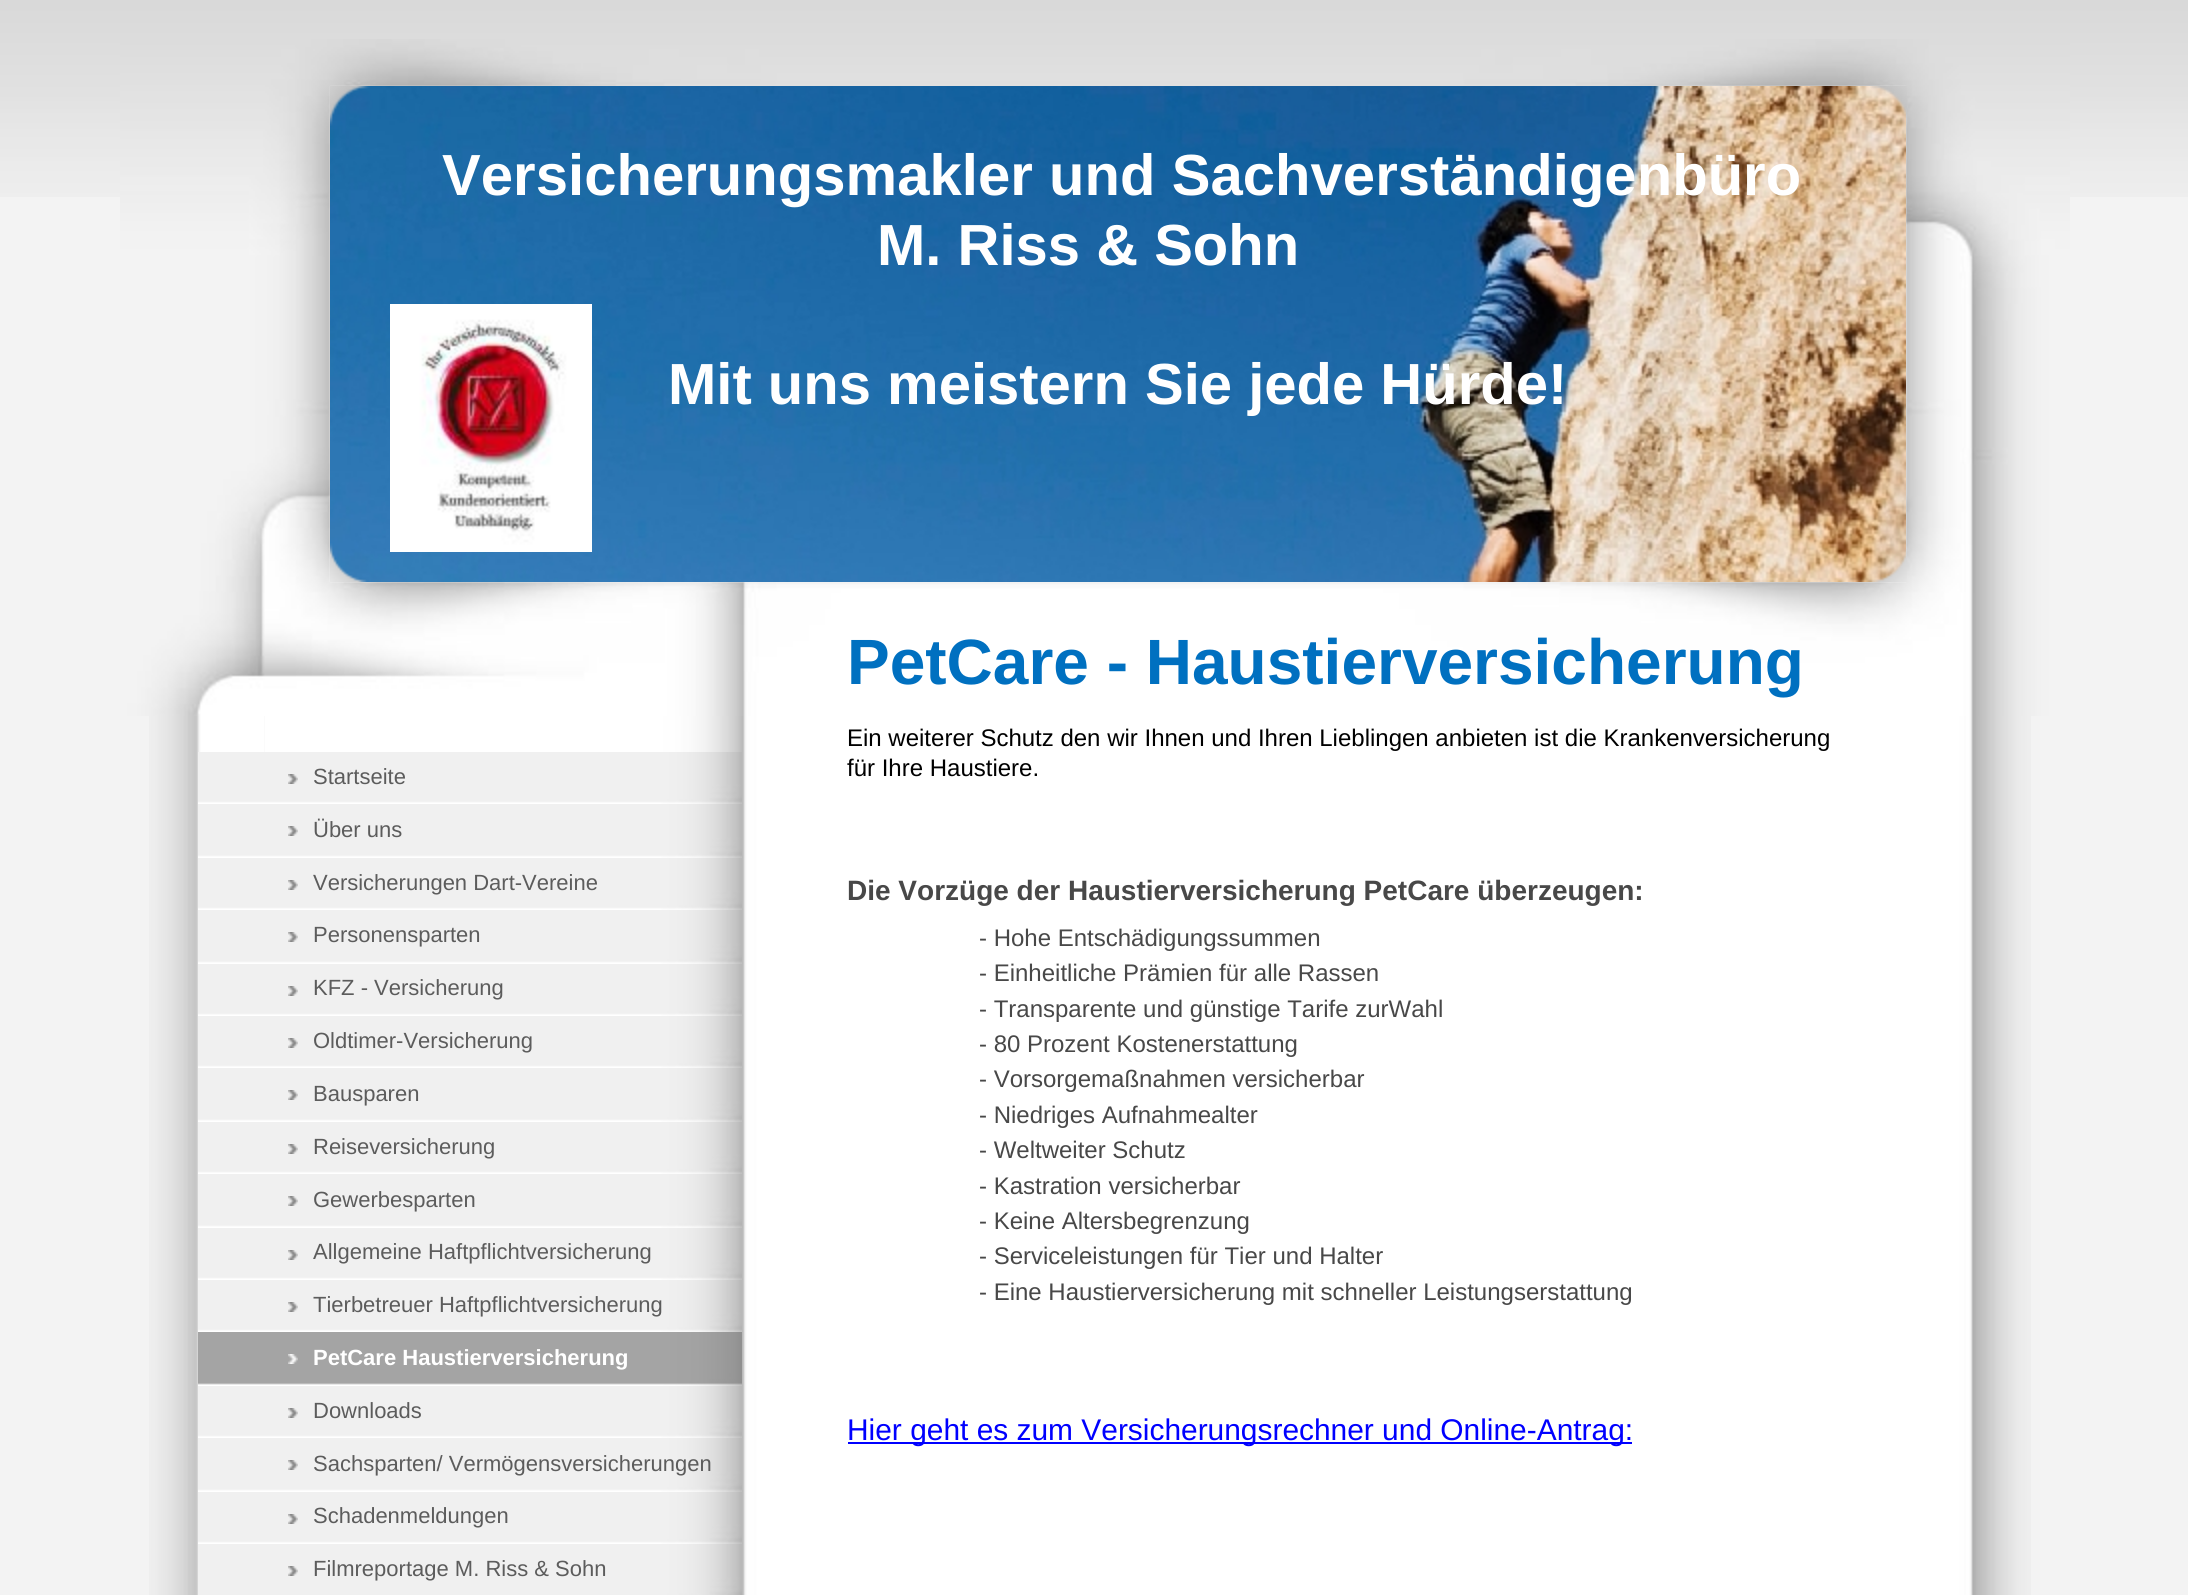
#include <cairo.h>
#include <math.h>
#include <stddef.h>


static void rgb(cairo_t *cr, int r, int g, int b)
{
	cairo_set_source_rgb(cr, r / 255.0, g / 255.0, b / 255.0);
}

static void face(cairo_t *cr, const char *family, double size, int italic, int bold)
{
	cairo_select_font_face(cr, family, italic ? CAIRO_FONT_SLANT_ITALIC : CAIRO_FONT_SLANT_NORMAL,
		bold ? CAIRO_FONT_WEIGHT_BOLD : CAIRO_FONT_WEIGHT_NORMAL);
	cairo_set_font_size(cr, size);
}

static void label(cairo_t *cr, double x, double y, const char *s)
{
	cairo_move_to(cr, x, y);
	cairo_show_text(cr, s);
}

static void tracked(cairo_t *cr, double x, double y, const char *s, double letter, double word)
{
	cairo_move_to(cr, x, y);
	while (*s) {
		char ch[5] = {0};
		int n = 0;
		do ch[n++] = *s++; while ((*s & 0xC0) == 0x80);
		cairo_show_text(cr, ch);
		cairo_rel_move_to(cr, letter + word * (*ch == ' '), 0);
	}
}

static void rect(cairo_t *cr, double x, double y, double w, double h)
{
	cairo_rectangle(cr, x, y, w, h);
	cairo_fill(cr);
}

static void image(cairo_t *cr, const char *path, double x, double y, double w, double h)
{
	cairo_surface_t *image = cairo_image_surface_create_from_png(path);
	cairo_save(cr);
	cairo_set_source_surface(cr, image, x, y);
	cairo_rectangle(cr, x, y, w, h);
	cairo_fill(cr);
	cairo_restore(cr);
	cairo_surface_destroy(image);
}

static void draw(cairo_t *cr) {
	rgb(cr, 243, 243, 243);
	cairo_paint(cr);
	image(cr, "image0.png", 0, 0, 2188, 197);
	image(cr, "image1.png", 120, 39, 1950, 677);
	image(cr, "image4.png", 330, 86, 1576, 496);
	image(cr, "image2.png", 330, 86, 40, 40);
	image(cr, "image3.png", 1870, 86, 37, 32);
	face(cr, "Liberation Sans", 58, 0, 1);
	rgb(cr, 255, 255, 255);
	tracked(cr, 442, 195, "Versicherungsmakler und Sachverständigenbüro", 0.05, 0);
	label(cr, 877, 265, "M. Riss & Sohn");
	label(cr, 668, 404, "Mit uns meistern Sie jede Hürde!");
	image(cr, "image5.png", 390, 304, 202, 248);
	image(cr, "image6.png", 330, 543, 37, 39);
	image(cr, "image7.png", 1872, 549, 35, 33);
	image(cr, "image8.png", 264, 716, 1767, 879);
	image(cr, "image9.png", 149, 716, 115, 879);
	image(cr, "image10.png", 198, 752, 544, 52);
	image(cr, "image11.png", 288, 774, 10, 10);
	face(cr, "Liberation Sans", 22, 0, 0);
	rgb(cr, 92, 92, 92);
	label(cr, 313, 784, "Startseite");
	image(cr, "image12.png", 198, 804, 544, 54);
	image(cr, "image11.png", 288, 826, 10, 10);
	label(cr, 313, 837, "Über uns");
	image(cr, "image10.png", 198, 858, 544, 52);
	image(cr, "image11.png", 288, 880, 10, 10);
	label(cr, 313, 890, "Versicherungen Dart-Vereine");
	image(cr, "image12.png", 198, 910, 544, 54);
	image(cr, "image11.png", 288, 932, 10, 10);
	label(cr, 313, 942, "Personensparten");
	image(cr, "image10.png", 198, 964, 544, 52);
	image(cr, "image11.png", 288, 986, 10, 10);
	label(cr, 313, 995, "KFZ - Versicherung");
	image(cr, "image10.png", 198, 1016, 544, 52);
	image(cr, "image11.png", 288, 1038, 10, 10);
	label(cr, 313, 1048, "Oldtimer-Versicherung");
	image(cr, "image12.png", 198, 1068, 544, 54);
	image(cr, "image11.png", 288, 1090, 10, 10);
	label(cr, 313, 1101, "Bausparen");
	image(cr, "image10.png", 198, 1122, 544, 52);
	image(cr, "image11.png", 288, 1144, 10, 10);
	label(cr, 313, 1154, "Reiseversicherung");
	image(cr, "image12.png", 198, 1174, 544, 54);
	image(cr, "image11.png", 288, 1196, 10, 10);
	label(cr, 313, 1207, "Gewerbesparten");
	image(cr, "image10.png", 198, 1228, 544, 52);
	image(cr, "image11.png", 288, 1250, 10, 10);
	label(cr, 313, 1259, "Allgemeine Haftpflichtversicherung");
	image(cr, "image10.png", 198, 1280, 544, 52);
	image(cr, "image11.png", 288, 1302, 10, 10);
	label(cr, 313, 1312, "Tierbetreuer Haftpflichtversicherung");
	image(cr, "image13.png", 198, 1332, 544, 54);
	image(cr, "image14.png", 288, 1354, 10, 10);
	face(cr, "Liberation Sans", 22, 0, 1);
	rgb(cr, 255, 255, 255);
	label(cr, 313, 1365, "PetCare Haustierversicherung");
	image(cr, "image10.png", 198, 1386, 544, 52);
	image(cr, "image11.png", 288, 1408, 10, 10);
	face(cr, "Liberation Sans", 22, 0, 0);
	rgb(cr, 92, 92, 92);
	label(cr, 313, 1418, "Downloads");
	image(cr, "image12.png", 198, 1438, 544, 54);
	image(cr, "image11.png", 288, 1460, 10, 10);
	label(cr, 313, 1471, "Sachsparten/ Vermögensversicherungen");
	image(cr, "image10.png", 198, 1492, 544, 52);
	image(cr, "image11.png", 288, 1514, 10, 10);
	label(cr, 313, 1523, "Schadenmeldungen");
	image(cr, "image15.png", 198, 1544, 544, 51);
	image(cr, "image11.png", 288, 1566, 10, 10);
	label(cr, 313, 1576, "Filmreportage M. Riss & Sohn");
	face(cr, "Liberation Sans", 64, 0, 1);
	rgb(cr, 0, 112, 192);
	label(cr, 847, 684, "PetCare - Haustierversicherung");
	face(cr, "Liberation Sans", 24, 0, 0);
	rgb(cr, 0, 0, 0);
	label(cr, 847, 746, "Ein weiterer Schutz den wir Ihnen und Ihren Lieblingen anbieten ist die Krankenversicherung");
	label(cr, 847, 776, "für Ihre Haustiere.");
	face(cr, "Liberation Sans", 28, 0, 1);
	rgb(cr, 72, 72, 72);
	label(cr, 847, 900, "Die Vorzüge der Haustierversicherung PetCare überzeugen:");
	face(cr, "Liberation Sans", 24, 0, 0);
	label(cr, 979, 946, "- Hohe Entschädigungssummen");
	label(cr, 979, 981, "- Einheitliche Prämien für alle Rassen");
	label(cr, 979, 1017, "- Transparente und günstige Tarife zurWahl");
	label(cr, 979, 1052, "- 80 Prozent Kostenerstattung");
	label(cr, 979, 1087, "- Vorsorgemaßnahmen versicherbar");
	label(cr, 979, 1123, "- Niedriges Aufnahmealter");
	label(cr, 979, 1158, "- Weltweiter Schutz");
	label(cr, 979, 1194, "- Kastration versicherbar");
	label(cr, 979, 1229, "- Keine Altersbegrenzung");
	label(cr, 979, 1264, "- Serviceleistungen für Tier und Halter");
	label(cr, 979, 1300, "- Eine Haustierversicherung mit schneller Leistungserstattung");
	rgb(cr, 0, 0, 255);
	rect(cr, 848, 1442, 784, 2);
	face(cr, "Liberation Sans", 29.9, 0, 0);
	label(cr, 847, 1440, "Hier geht es zum Versicherungsrechner und Online-Antrag:");
}

int main(void) {
	cairo_surface_t *surface = cairo_image_surface_create(CAIRO_FORMAT_RGB24, 2188, 1595);
	cairo_t *cr = cairo_create(surface);
	cairo_font_options_t *options = cairo_font_options_create();
	cairo_font_options_set_hint_metrics(options, CAIRO_HINT_METRICS_OFF);
	cairo_font_options_set_hint_style(options, CAIRO_HINT_STYLE_NONE);
	cairo_set_font_options(cr, options);
	cairo_set_miter_limit(cr, 4);
	draw(cr);
	cairo_surface_write_to_png(surface, "render.png");
	cairo_font_options_destroy(options);
	cairo_destroy(cr);
	cairo_surface_destroy(surface);
	return 0;
}
